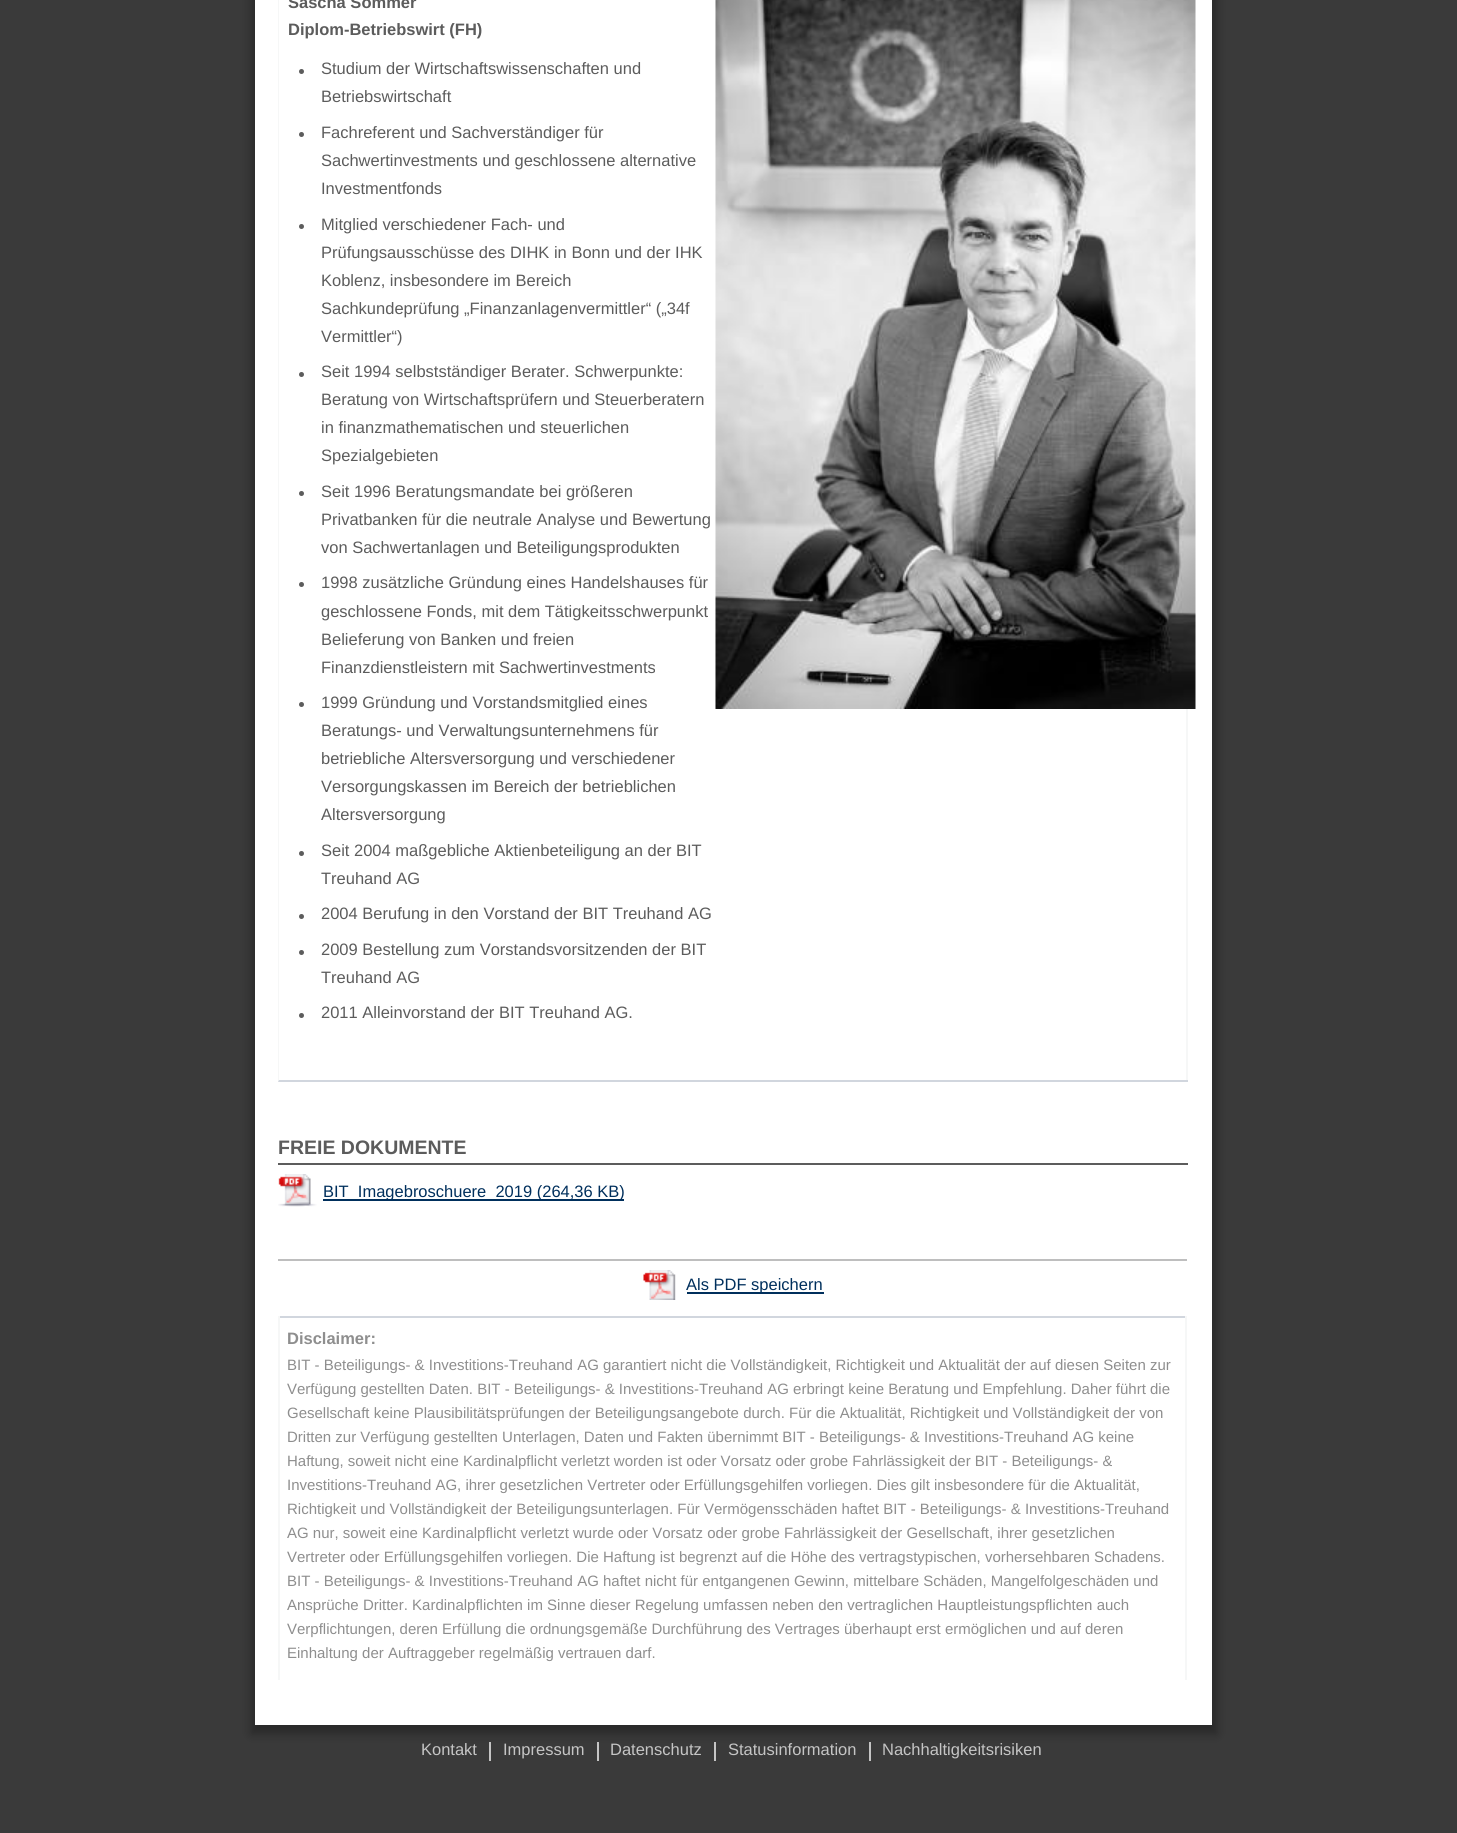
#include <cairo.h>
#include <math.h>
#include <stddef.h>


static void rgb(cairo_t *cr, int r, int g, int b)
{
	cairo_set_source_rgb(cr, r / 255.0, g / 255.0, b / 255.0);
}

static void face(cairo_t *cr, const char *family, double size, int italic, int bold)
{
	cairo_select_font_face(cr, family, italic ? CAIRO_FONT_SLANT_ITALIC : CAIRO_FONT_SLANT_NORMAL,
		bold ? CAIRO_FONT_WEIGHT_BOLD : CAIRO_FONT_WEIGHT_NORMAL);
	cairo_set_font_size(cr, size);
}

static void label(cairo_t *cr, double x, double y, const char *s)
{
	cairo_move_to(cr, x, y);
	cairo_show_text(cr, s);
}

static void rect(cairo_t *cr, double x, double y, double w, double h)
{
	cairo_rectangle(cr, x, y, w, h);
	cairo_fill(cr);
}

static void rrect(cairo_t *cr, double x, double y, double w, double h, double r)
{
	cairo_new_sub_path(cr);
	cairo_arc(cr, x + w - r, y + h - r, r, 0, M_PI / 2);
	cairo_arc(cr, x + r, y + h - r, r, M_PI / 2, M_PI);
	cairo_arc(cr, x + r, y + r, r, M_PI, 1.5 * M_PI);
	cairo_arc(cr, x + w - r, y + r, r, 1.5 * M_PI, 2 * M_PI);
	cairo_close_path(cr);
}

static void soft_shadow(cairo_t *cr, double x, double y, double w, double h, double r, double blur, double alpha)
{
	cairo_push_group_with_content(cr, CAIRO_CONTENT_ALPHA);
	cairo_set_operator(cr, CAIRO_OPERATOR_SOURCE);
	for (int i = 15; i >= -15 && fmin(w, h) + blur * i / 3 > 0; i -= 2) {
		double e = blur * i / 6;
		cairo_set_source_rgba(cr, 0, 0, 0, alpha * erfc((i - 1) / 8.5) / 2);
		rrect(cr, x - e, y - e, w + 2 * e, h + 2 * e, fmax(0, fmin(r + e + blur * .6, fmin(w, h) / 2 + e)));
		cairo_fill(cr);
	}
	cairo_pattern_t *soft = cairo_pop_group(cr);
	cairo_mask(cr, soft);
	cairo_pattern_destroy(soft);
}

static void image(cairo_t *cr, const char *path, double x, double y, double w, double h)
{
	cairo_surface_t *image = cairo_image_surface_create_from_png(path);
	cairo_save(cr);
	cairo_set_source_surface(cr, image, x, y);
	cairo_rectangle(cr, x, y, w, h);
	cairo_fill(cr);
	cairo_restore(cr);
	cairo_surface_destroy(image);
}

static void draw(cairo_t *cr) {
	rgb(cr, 58, 58, 58);
	cairo_paint(cr);
	rgb(cr, 197, 197, 197);
	rect(cr, 489, 1742, 2, 19);
	rect(cr, 597, 1742, 2, 19);
	rect(cr, 714, 1742, 2, 19);
	rect(cr, 869, 1742, 2, 19);
	rgb(cr, 0, 0, 0);
	soft_shadow(cr, 251, -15, 966, 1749, 0, 5, 0.3);
	rgb(cr, 255, 255, 255);
	rect(cr, 255, 0, 957, 1725);
	rgb(cr, 246, 247, 247);
	cairo_new_path(cr);
	cairo_move_to(cr, 1188, -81);
	cairo_line_to(cr, 1188, 1082);
	cairo_line_to(cr, 1186, 1080);
	cairo_line_to(cr, 1186, -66);
	cairo_close_path(cr);
	cairo_fill(cr);
	rgb(cr, 209, 214, 222);
	rect(cr, 278, 1080, 910, 2);
	rgb(cr, 246, 247, 247);
	cairo_new_path(cr);
	cairo_move_to(cr, 278, 1082);
	cairo_line_to(cr, 278, -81);
	cairo_line_to(cr, 279, -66);
	cairo_line_to(cr, 279, 1080);
	cairo_close_path(cr);
	cairo_fill(cr);
	face(cr, "Liberation Sans", 16.5, 0, 1);
	rgb(cr, 92, 92, 92);
	label(cr, 288, 8, "Sascha Sommer");
	label(cr, 288, 35, "Diplom-Betriebswirt (FH)");
	cairo_new_path(cr);
	cairo_arc(cr, 301.5, 71.5, 2.5, 0, 2 * M_PI);
	cairo_fill(cr);
	face(cr, "Liberation Sans", 16.5, 0, 0);
	label(cr, 321, 74, "Studium der Wirtschaftswissenschaften und");
	label(cr, 321, 102, "Betriebswirtschaft");
	cairo_new_path(cr);
	cairo_arc(cr, 301.5, 134.5, 2.5, 0, 2 * M_PI);
	cairo_fill(cr);
	label(cr, 321, 138, "Fachreferent und Sachverständiger für");
	label(cr, 321, 166, "Sachwertinvestments und geschlossene alternative");
	label(cr, 321, 194, "Investmentfonds");
	cairo_new_path(cr);
	cairo_arc(cr, 301.5, 226.5, 2.5, 0, 2 * M_PI);
	cairo_fill(cr);
	label(cr, 321, 230, "Mitglied verschiedener Fach- und");
	label(cr, 321, 258, "Prüfungsausschüsse des DIHK in Bonn und der IHK");
	label(cr, 321, 286, "Koblenz, insbesondere im Bereich");
	label(cr, 321, 314, "Sachkundeprüfung „Finanzanlagenvermittler“ („34f");
	label(cr, 321, 342, "Vermittler“)");
	cairo_new_path(cr);
	cairo_arc(cr, 301.5, 374.5, 2.5, 0, 2 * M_PI);
	cairo_fill(cr);
	label(cr, 321, 377, "Seit 1994 selbstständiger Berater. Schwerpunkte:");
	label(cr, 321, 405, "Beratung von Wirtschaftsprüfern und Steuerberatern");
	label(cr, 321, 433, "in finanzmathematischen und steuerlichen");
	label(cr, 321, 461, "Spezialgebieten");
	cairo_new_path(cr);
	cairo_arc(cr, 301.5, 493.5, 2.5, 0, 2 * M_PI);
	cairo_fill(cr);
	label(cr, 321, 497, "Seit 1996 Beratungsmandate bei größeren");
	label(cr, 321, 525, "Privatbanken für die neutrale Analyse und Bewertung");
	label(cr, 321, 553, "von Sachwertanlagen und Beteiligungsprodukten");
	cairo_new_path(cr);
	cairo_arc(cr, 301.5, 584.5, 2.5, 0, 2 * M_PI);
	cairo_fill(cr);
	label(cr, 321, 588, "1998 zusätzliche Gründung eines Handelshauses für");
	label(cr, 321, 617, "geschlossene Fonds, mit dem Tätigkeitsschwerpunkt");
	label(cr, 321, 645, "Belieferung von Banken und freien");
	label(cr, 321, 673, "Finanzdienstleistern mit Sachwertinvestments");
	cairo_new_path(cr);
	cairo_arc(cr, 301.5, 704.5, 2.5, 0, 2 * M_PI);
	cairo_fill(cr);
	label(cr, 321, 708, "1999 Gründung und Vorstandsmitglied eines");
	label(cr, 321, 736, "Beratungs- und Verwaltungsunternehmens für");
	label(cr, 321, 764, "betriebliche Altersversorgung und verschiedener");
	label(cr, 321, 792, "Versorgungskassen im Bereich der betrieblichen");
	label(cr, 321, 820, "Altersversorgung");
	cairo_new_path(cr);
	cairo_arc(cr, 301.5, 853.5, 2.5, 0, 2 * M_PI);
	cairo_fill(cr);
	label(cr, 321, 856, "Seit 2004 maßgebliche Aktienbeteiligung an der BIT");
	label(cr, 321, 884, "Treuhand AG");
	cairo_new_path(cr);
	cairo_arc(cr, 301.5, 916.5, 2.5, 0, 2 * M_PI);
	cairo_fill(cr);
	label(cr, 321, 919, "2004 Berufung in den Vorstand der BIT Treuhand AG");
	cairo_new_path(cr);
	cairo_arc(cr, 301.5, 952.5, 2.5, 0, 2 * M_PI);
	cairo_fill(cr);
	label(cr, 321, 955, "2009 Bestellung zum Vorstandsvorsitzenden der BIT");
	label(cr, 321, 983, "Treuhand AG");
	cairo_new_path(cr);
	cairo_arc(cr, 301.5, 1015.5, 2.5, 0, 2 * M_PI);
	cairo_fill(cr);
	label(cr, 321, 1018, "2011 Alleinvorstand der BIT Treuhand AG.");
	image(cr, "image0.png", 715, 0, 481, 709);
	rect(cr, 278, 1163, 910, 2);
	face(cr, "Liberation Sans", 19.5, 0, 1);
	label(cr, 278, 1154, "FREIE DOKUMENTE");
	image(cr, "image1.png", 278, 1174, 39, 33);
	rgb(cr, 0, 47, 92);
	rect(cr, 323, 1199, 301, 2);
	face(cr, "Liberation Sans", 16.5, 0, 0);
	label(cr, 323, 1197, "BIT_Imagebroschuere_2019 (264,36 KB)");
	rgb(cr, 190, 190, 190);
	rect(cr, 278, 1259, 909, 2);
	image(cr, "image2.png", 643, 1270, 33, 30);
	rgb(cr, 0, 47, 92);
	rect(cr, 687, 1292, 137, 2);
	label(cr, 686, 1290, "Als PDF speichern");
	rgb(cr, 209, 214, 222);
	rect(cr, 278, 1316, 909, 2);
	rgb(cr, 246, 247, 247);
	rect(cr, 1185, 1316, 2, 364);
	rect(cr, 278, 1316, 2, 364);
	face(cr, "Liberation Sans", 16.5, 0, 1);
	rgb(cr, 142, 142, 142);
	label(cr, 287, 1344, "Disclaimer:");
	face(cr, "Liberation Sans", 15, 0, 0);
	label(cr, 287, 1370, "BIT - Beteiligungs- & Investitions-Treuhand AG garantiert nicht die Vollständigkeit, Richtigkeit und Aktualität der auf diesen Seiten zur");
	label(cr, 287, 1394, "Verfügung gestellten Daten. BIT - Beteiligungs- & Investitions-Treuhand AG erbringt keine Beratung und Empfehlung. Daher führt die");
	label(cr, 287, 1418, "Gesellschaft keine Plausibilitätsprüfungen der Beteiligungsangebote durch. Für die Aktualität, Richtigkeit und Vollständigkeit der von");
	label(cr, 287, 1442, "Dritten zur Verfügung gestellten Unterlagen, Daten und Fakten übernimmt BIT - Beteiligungs- & Investitions-Treuhand AG keine");
	label(cr, 287, 1466, "Haftung, soweit nicht eine Kardinalpflicht verletzt worden ist oder Vorsatz oder grobe Fahrlässigkeit der BIT - Beteiligungs- &");
	label(cr, 287, 1490, "Investitions-Treuhand AG, ihrer gesetzlichen Vertreter oder Erfüllungsgehilfen vorliegen. Dies gilt insbesondere für die Aktualität,");
	label(cr, 287, 1514, "Richtigkeit und Vollständigkeit der Beteiligungsunterlagen. Für Vermögensschäden haftet BIT - Beteiligungs- & Investitions-Treuhand");
	label(cr, 287, 1538, "AG nur, soweit eine Kardinalpflicht verletzt wurde oder Vorsatz oder grobe Fahrlässigkeit der Gesellschaft, ihrer gesetzlichen");
	label(cr, 287, 1562, "Vertreter oder Erfüllungsgehilfen vorliegen. Die Haftung ist begrenzt auf die Höhe des vertragstypischen, vorhersehbaren Schadens.");
	label(cr, 287, 1586, "BIT - Beteiligungs- & Investitions-Treuhand AG haftet nicht für entgangenen Gewinn, mittelbare Schäden, Mangelfolgeschäden und");
	label(cr, 287, 1610, "Ansprüche Dritter. Kardinalpflichten im Sinne dieser Regelung umfassen neben den vertraglichen Hauptleistungspflichten auch");
	label(cr, 287, 1634, "Verpflichtungen, deren Erfüllung die ordnungsgemäße Durchführung des Vertrages überhaupt erst ermöglichen und auf deren");
	label(cr, 287, 1658, "Einhaltung der Auftraggeber regelmäßig vertrauen darf.");
	face(cr, "Liberation Sans", 16.5, 0, 0);
	rgb(cr, 197, 197, 197);
	label(cr, 421, 1755, "Kontakt");
	label(cr, 503, 1755, "Impressum");
	label(cr, 610, 1755, "Datenschutz");
	label(cr, 728, 1755, "Statusinformation");
	label(cr, 882, 1755, "Nachhaltigkeitsrisiken");
}

int main(void) {
	cairo_surface_t *surface = cairo_image_surface_create(CAIRO_FORMAT_RGB24, 1457, 1833);
	cairo_t *cr = cairo_create(surface);
	cairo_font_options_t *options = cairo_font_options_create();
	cairo_font_options_set_hint_metrics(options, CAIRO_HINT_METRICS_OFF);
	cairo_font_options_set_hint_style(options, CAIRO_HINT_STYLE_NONE);
	cairo_set_font_options(cr, options);
	cairo_set_miter_limit(cr, 4);
	draw(cr);
	cairo_surface_write_to_png(surface, "render.png");
	cairo_font_options_destroy(options);
	cairo_destroy(cr);
	cairo_surface_destroy(surface);
	return 0;
}
